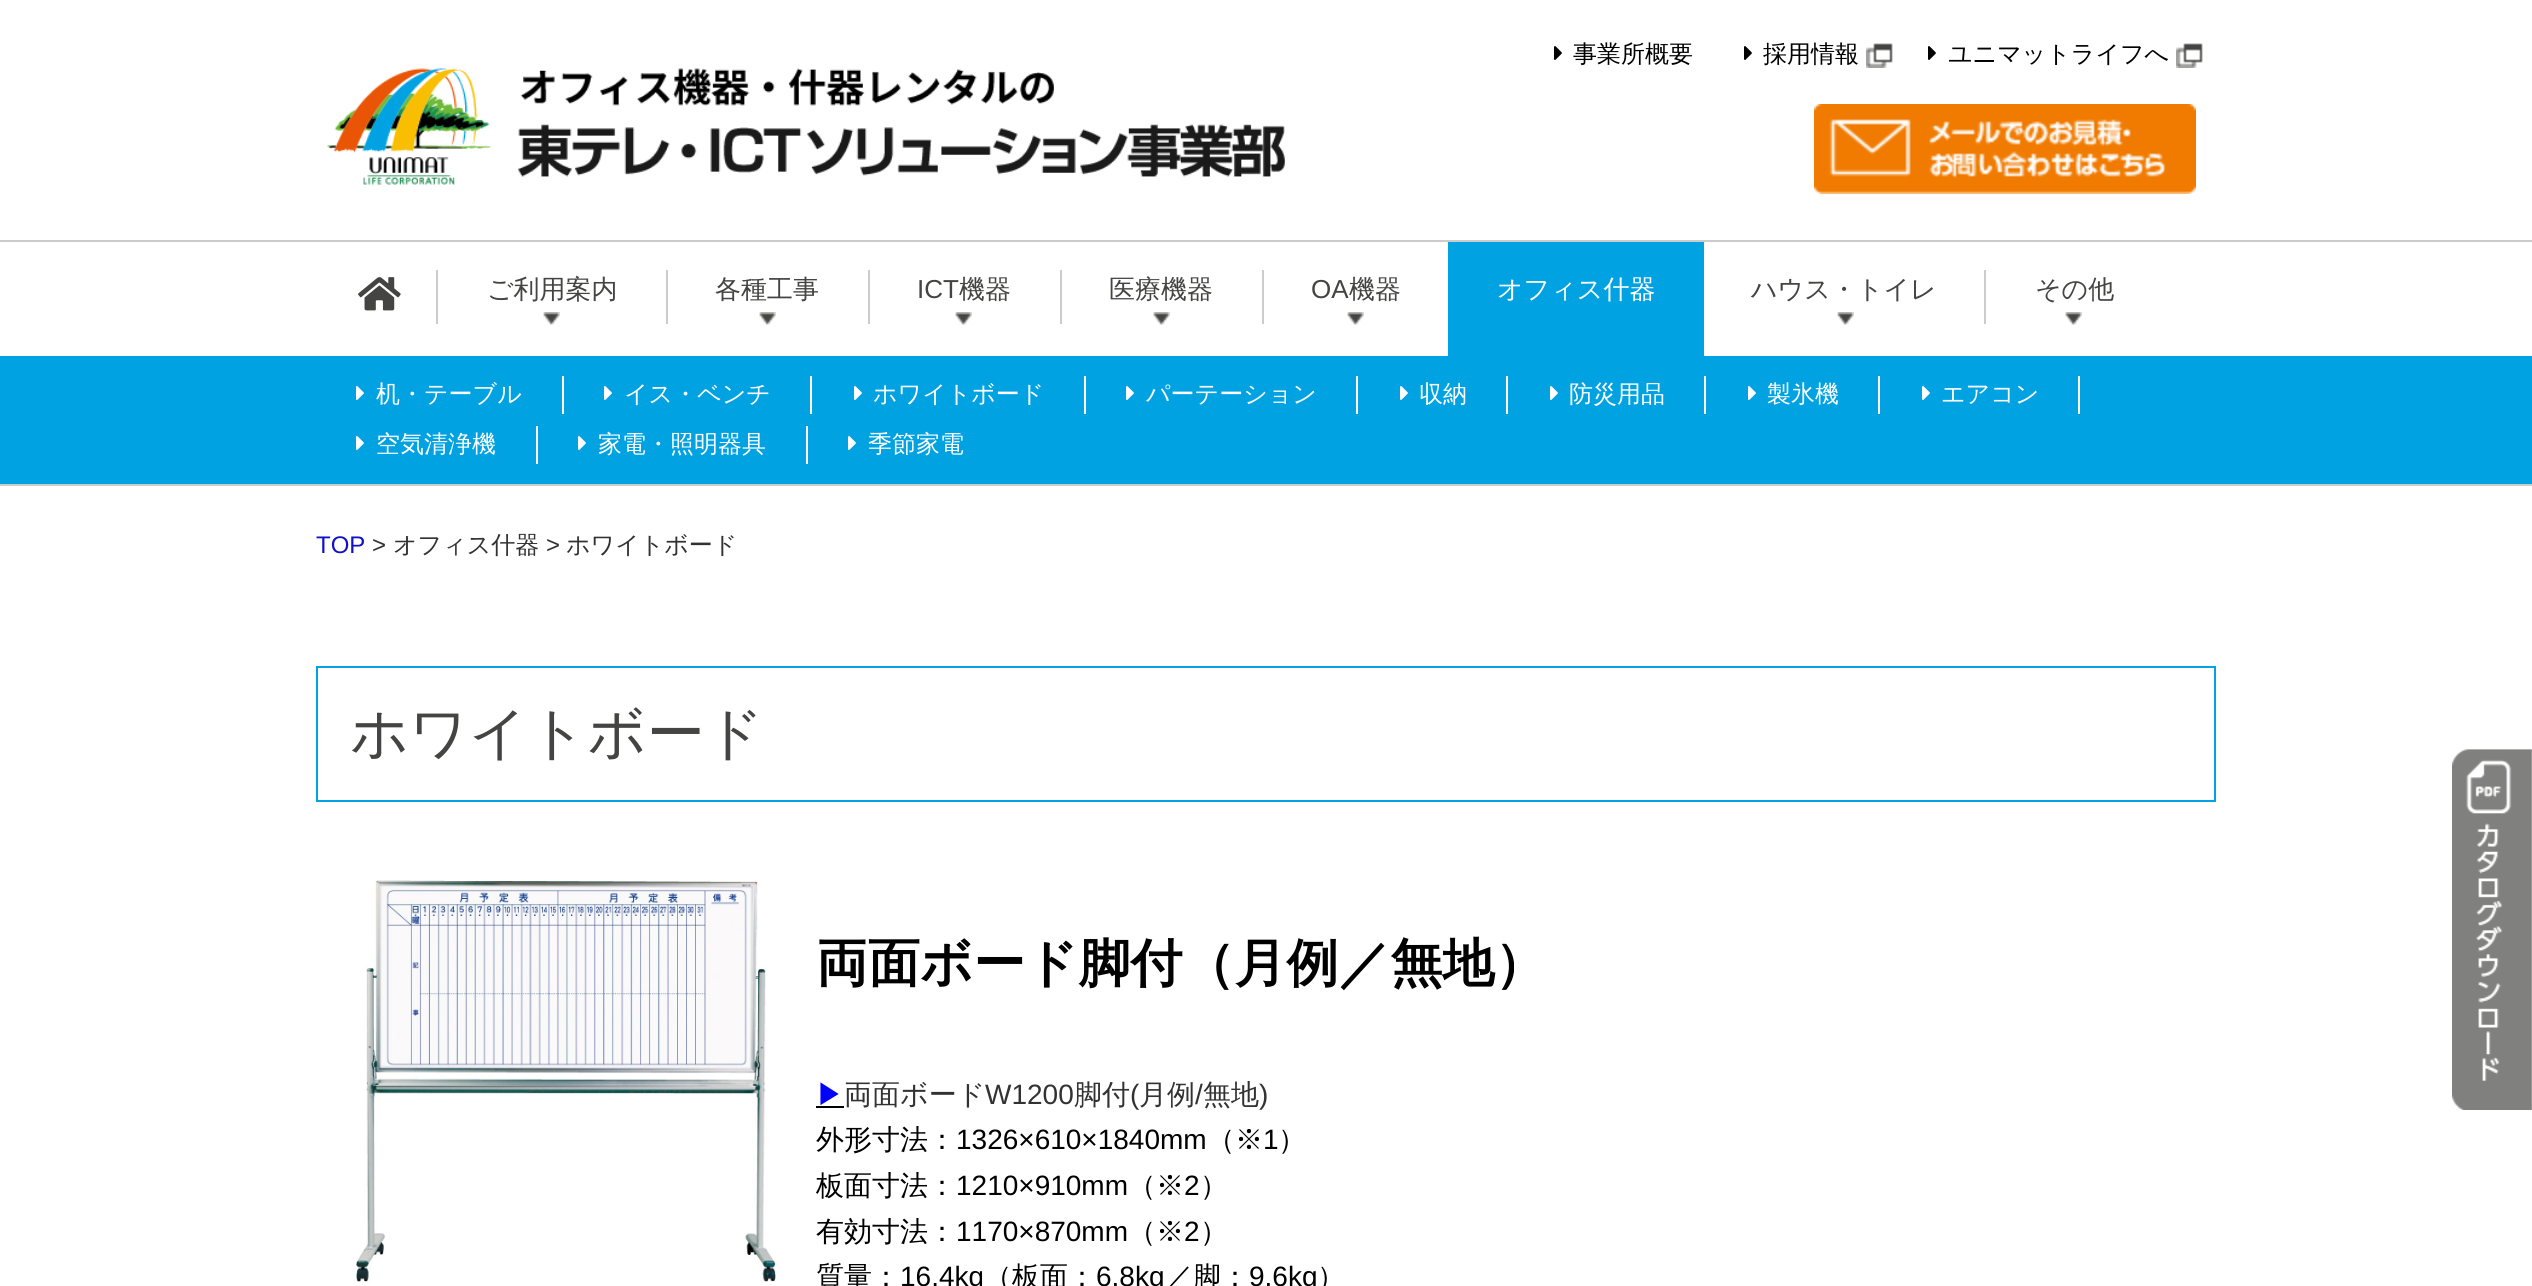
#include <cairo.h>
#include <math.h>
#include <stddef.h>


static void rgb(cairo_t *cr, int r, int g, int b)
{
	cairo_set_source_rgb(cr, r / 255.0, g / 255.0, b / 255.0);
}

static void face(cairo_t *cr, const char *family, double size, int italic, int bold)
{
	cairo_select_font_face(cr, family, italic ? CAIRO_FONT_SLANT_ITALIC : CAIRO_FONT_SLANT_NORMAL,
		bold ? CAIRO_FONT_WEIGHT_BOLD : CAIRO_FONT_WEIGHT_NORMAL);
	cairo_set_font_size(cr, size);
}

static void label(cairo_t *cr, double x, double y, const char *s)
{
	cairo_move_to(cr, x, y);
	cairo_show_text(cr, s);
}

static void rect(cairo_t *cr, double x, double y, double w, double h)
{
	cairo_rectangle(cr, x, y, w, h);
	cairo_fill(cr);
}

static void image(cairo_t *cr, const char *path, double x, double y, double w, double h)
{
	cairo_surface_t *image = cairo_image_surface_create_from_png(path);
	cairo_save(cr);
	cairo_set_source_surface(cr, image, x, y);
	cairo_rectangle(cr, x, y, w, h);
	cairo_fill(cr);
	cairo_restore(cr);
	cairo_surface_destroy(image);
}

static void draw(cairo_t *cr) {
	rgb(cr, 255, 255, 255);
	cairo_paint(cr);
	image(cr, "image0.png", 1554, 46, 8, 14);
	face(cr, "WenQuanYi Zen Hei Medium", 24, 0, 0);
	rgb(cr, 0, 0, 0);
	label(cr, 1573, 62, "事業所概要");
	image(cr, "image0.png", 1744, 46, 8, 14);
	label(cr, 1763, 62, "採用情報");
	image(cr, "image1.png", 1866, 43, 27, 25);
	image(cr, "image0.png", 1928, 46, 8, 14);
	label(cr, 1948, 62, "ユニマットライフへ");
	image(cr, "image1.png", 2176, 43, 27, 25);
	image(cr, "image2.png", 327, 68, 958, 117);
	image(cr, "image3.png", 1814, 104, 382, 90);
	rgb(cr, 204, 204, 204);
	rect(cr, 0, 240, 2532, 2);
	image(cr, "image4.png", 358, 277, 43, 34);
	rect(cr, 436, 270, 2, 54);
	face(cr, "WenQuanYi Zen Hei Medium", 26, 0, 0);
	rgb(cr, 68, 68, 66);
	label(cr, 487, 298, "ご利用案内");
	image(cr, "image5.png", 543, 312, 17, 13);
	rgb(cr, 204, 204, 204);
	rect(cr, 666, 270, 2, 54);
	rgb(cr, 68, 68, 66);
	label(cr, 715, 298, "各種工事");
	image(cr, "image5.png", 759, 312, 17, 13);
	rgb(cr, 204, 204, 204);
	rect(cr, 868, 270, 2, 54);
	face(cr, "Liberation Sans", 26, 0, 0);
	rgb(cr, 68, 68, 66);
	label(cr, 917, 298, "ICT");
	face(cr, "WenQuanYi Zen Hei Medium", 26, 0, 0);
	label(cr, 959, 298, "機器");
	image(cr, "image5.png", 955, 312, 17, 13);
	rgb(cr, 204, 204, 204);
	rect(cr, 1060, 270, 2, 54);
	rgb(cr, 68, 68, 66);
	label(cr, 1109, 298, "医療機器");
	image(cr, "image5.png", 1153, 312, 17, 13);
	rgb(cr, 204, 204, 204);
	rect(cr, 1262, 270, 2, 54);
	face(cr, "Liberation Sans", 26, 0, 0);
	rgb(cr, 68, 68, 66);
	label(cr, 1311, 298, "OA");
	face(cr, "WenQuanYi Zen Hei Medium", 26, 0, 0);
	label(cr, 1349, 298, "機器");
	image(cr, "image5.png", 1347, 312, 17, 13);
	rgb(cr, 0, 162, 226);
	rect(cr, 1448, 242, 256, 114);
	rgb(cr, 255, 255, 255);
	label(cr, 1497, 298, "オフィス什器");
	rgb(cr, 68, 68, 66);
	label(cr, 1751, 298, "ハウス・トイレ");
	image(cr, "image5.png", 1837, 312, 17, 13);
	rgb(cr, 204, 204, 204);
	rect(cr, 1984, 270, 2, 54);
	rgb(cr, 68, 68, 66);
	label(cr, 2035, 298, "その他");
	image(cr, "image5.png", 2065, 312, 17, 13);
	rgb(cr, 0, 162, 226);
	rect(cr, 0, 356, 2532, 128);
	rgb(cr, 255, 255, 255);
	rect(cr, 562, 376, 2, 38);
	image(cr, "image6.png", 356, 386, 8, 14);
	face(cr, "WenQuanYi Zen Hei Medium", 24, 0, 0);
	label(cr, 376, 402, "机・テーブル");
	rect(cr, 810, 376, 2, 38);
	image(cr, "image6.png", 604, 386, 8, 14);
	label(cr, 624, 402, "イス・ベンチ");
	rect(cr, 1084, 376, 2, 38);
	image(cr, "image6.png", 854, 386, 8, 14);
	label(cr, 873, 402, "ホワイトボード");
	rect(cr, 1356, 376, 2, 38);
	image(cr, "image6.png", 1126, 386, 8, 14);
	label(cr, 1146, 402, "パーテーション");
	rect(cr, 1506, 376, 2, 38);
	image(cr, "image6.png", 1400, 386, 8, 14);
	label(cr, 1419, 402, "収納");
	rect(cr, 1704, 376, 2, 38);
	image(cr, "image6.png", 1550, 386, 8, 14);
	label(cr, 1569, 402, "防災用品");
	rect(cr, 1878, 376, 2, 38);
	image(cr, "image6.png", 1748, 386, 8, 14);
	label(cr, 1767, 402, "製氷機");
	rect(cr, 2078, 376, 2, 38);
	image(cr, "image6.png", 1922, 386, 8, 14);
	label(cr, 1941, 402, "エアコン");
	rect(cr, 536, 426, 2, 38);
	image(cr, "image6.png", 356, 436, 8, 14);
	label(cr, 376, 452, "空気清浄機");
	rect(cr, 806, 426, 2, 38);
	image(cr, "image6.png", 578, 436, 8, 14);
	label(cr, 598, 452, "家電・照明器具");
	image(cr, "image6.png", 848, 436, 8, 14);
	label(cr, 868, 452, "季節家電");
	rgb(cr, 204, 204, 204);
	rect(cr, 0, 484, 2532, 2);
	face(cr, "Liberation Sans", 24, 0, 0);
	rgb(cr, 17, 17, 204);
	label(cr, 316, 553, "TOP");
	rgb(cr, 50, 50, 50);
	label(cr, 372, 553, ">");
	face(cr, "WenQuanYi Zen Hei Medium", 24, 0, 0);
	label(cr, 393, 553, "オフィス什器");
	face(cr, "Liberation Sans", 24, 0, 0);
	label(cr, 546, 553, ">");
	face(cr, "WenQuanYi Zen Hei Medium", 24, 0, 0);
	label(cr, 566, 553, "ホワイトボード");
	cairo_rectangle(cr, 317, 667, 1898, 134);
	rgb(cr, 0, 162, 226);
	cairo_stroke(cr);
	face(cr, "WenQuanYi Zen Hei Medium", 58, 0, 0);
	rgb(cr, 68, 68, 66);
	label(cr, 350, 753, "ホワイトボード");
	image(cr, "image7.png", 356, 880, 420, 402);
	face(cr, "WenQuanYi Zen Hei", 52, 0, 1);
	rgb(cr, 0, 0, 0);
	label(cr, 816, 981, "両面ボード脚付（月例／無地）");
	face(cr, "WenQuanYi Zen Hei Medium", 28, 0, 0);
	rgb(cr, 0, 0, 255);
	label(cr, 816, 1104, "▶");
	rgb(cr, 0, 0, 0);
	rect(cr, 816, 1106, 28, 2);
	rgb(cr, 50, 50, 50);
	label(cr, 844, 1104, "両面ボード");
	face(cr, "Liberation Sans", 28, 0, 0);
	label(cr, 985, 1104, "W1200");
	face(cr, "WenQuanYi Zen Hei Medium", 28, 0, 0);
	label(cr, 1074, 1104, "脚付");
	face(cr, "Liberation Sans", 28, 0, 0);
	label(cr, 1130, 1104, "(");
	face(cr, "WenQuanYi Zen Hei Medium", 28, 0, 0);
	label(cr, 1139, 1104, "月例");
	face(cr, "Liberation Sans", 28, 0, 0);
	label(cr, 1195, 1104, "/");
	face(cr, "WenQuanYi Zen Hei Medium", 28, 0, 0);
	label(cr, 1203, 1104, "無地");
	face(cr, "Liberation Sans", 28, 0, 0);
	label(cr, 1259, 1104, ")");
	face(cr, "WenQuanYi Zen Hei Medium", 28, 0, 0);
	rgb(cr, 0, 0, 0);
	label(cr, 816, 1149, "外形寸法：");
	face(cr, "Liberation Sans", 28, 0, 0);
	label(cr, 956, 1149, "1326×610×1840mm");
	face(cr, "WenQuanYi Zen Hei Medium", 28, 0, 0);
	label(cr, 1207, 1149, "（※");
	face(cr, "Liberation Sans", 28, 0, 0);
	label(cr, 1263, 1149, "1");
	face(cr, "WenQuanYi Zen Hei Medium", 28, 0, 0);
	label(cr, 1278, 1149, "）");
	label(cr, 816, 1195, "板面寸法：");
	face(cr, "Liberation Sans", 28, 0, 0);
	label(cr, 956, 1195, "1210×910mm");
	face(cr, "WenQuanYi Zen Hei Medium", 28, 0, 0);
	label(cr, 1128, 1195, "（※");
	face(cr, "Liberation Sans", 28, 0, 0);
	label(cr, 1184, 1195, "2");
	face(cr, "WenQuanYi Zen Hei Medium", 28, 0, 0);
	label(cr, 1200, 1195, "）");
	label(cr, 816, 1241, "有効寸法：");
	face(cr, "Liberation Sans", 28, 0, 0);
	label(cr, 956, 1241, "1170×870mm");
	face(cr, "WenQuanYi Zen Hei Medium", 28, 0, 0);
	label(cr, 1128, 1241, "（※");
	face(cr, "Liberation Sans", 28, 0, 0);
	label(cr, 1184, 1241, "2");
	face(cr, "WenQuanYi Zen Hei Medium", 28, 0, 0);
	label(cr, 1200, 1241, "）");
	label(cr, 816, 1286, "質量：");
	face(cr, "Liberation Sans", 28, 0, 0);
	label(cr, 900, 1286, "16.4kg");
	face(cr, "WenQuanYi Zen Hei Medium", 28, 0, 0);
	label(cr, 984, 1286, "（板面：");
	face(cr, "Liberation Sans", 28, 0, 0);
	label(cr, 1096, 1286, "6.8kg");
	face(cr, "WenQuanYi Zen Hei Medium", 28, 0, 0);
	label(cr, 1165, 1286, "／脚：");
	face(cr, "Liberation Sans", 28, 0, 0);
	label(cr, 1249, 1286, "9.6kg");
	face(cr, "WenQuanYi Zen Hei Medium", 28, 0, 0);
	label(cr, 1317, 1286, "）");
	image(cr, "image8.png", 2452, 749, 80, 361);
}

int main(void) {
	cairo_surface_t *surface = cairo_image_surface_create(CAIRO_FORMAT_RGB24, 2532, 1286);
	cairo_t *cr = cairo_create(surface);
	cairo_font_options_t *options = cairo_font_options_create();
	cairo_font_options_set_hint_metrics(options, CAIRO_HINT_METRICS_OFF);
	cairo_font_options_set_hint_style(options, CAIRO_HINT_STYLE_NONE);
	cairo_set_font_options(cr, options);
	cairo_set_miter_limit(cr, 4);
	draw(cr);
	cairo_surface_write_to_png(surface, "render.png");
	cairo_font_options_destroy(options);
	cairo_destroy(cr);
	cairo_surface_destroy(surface);
	return 0;
}
